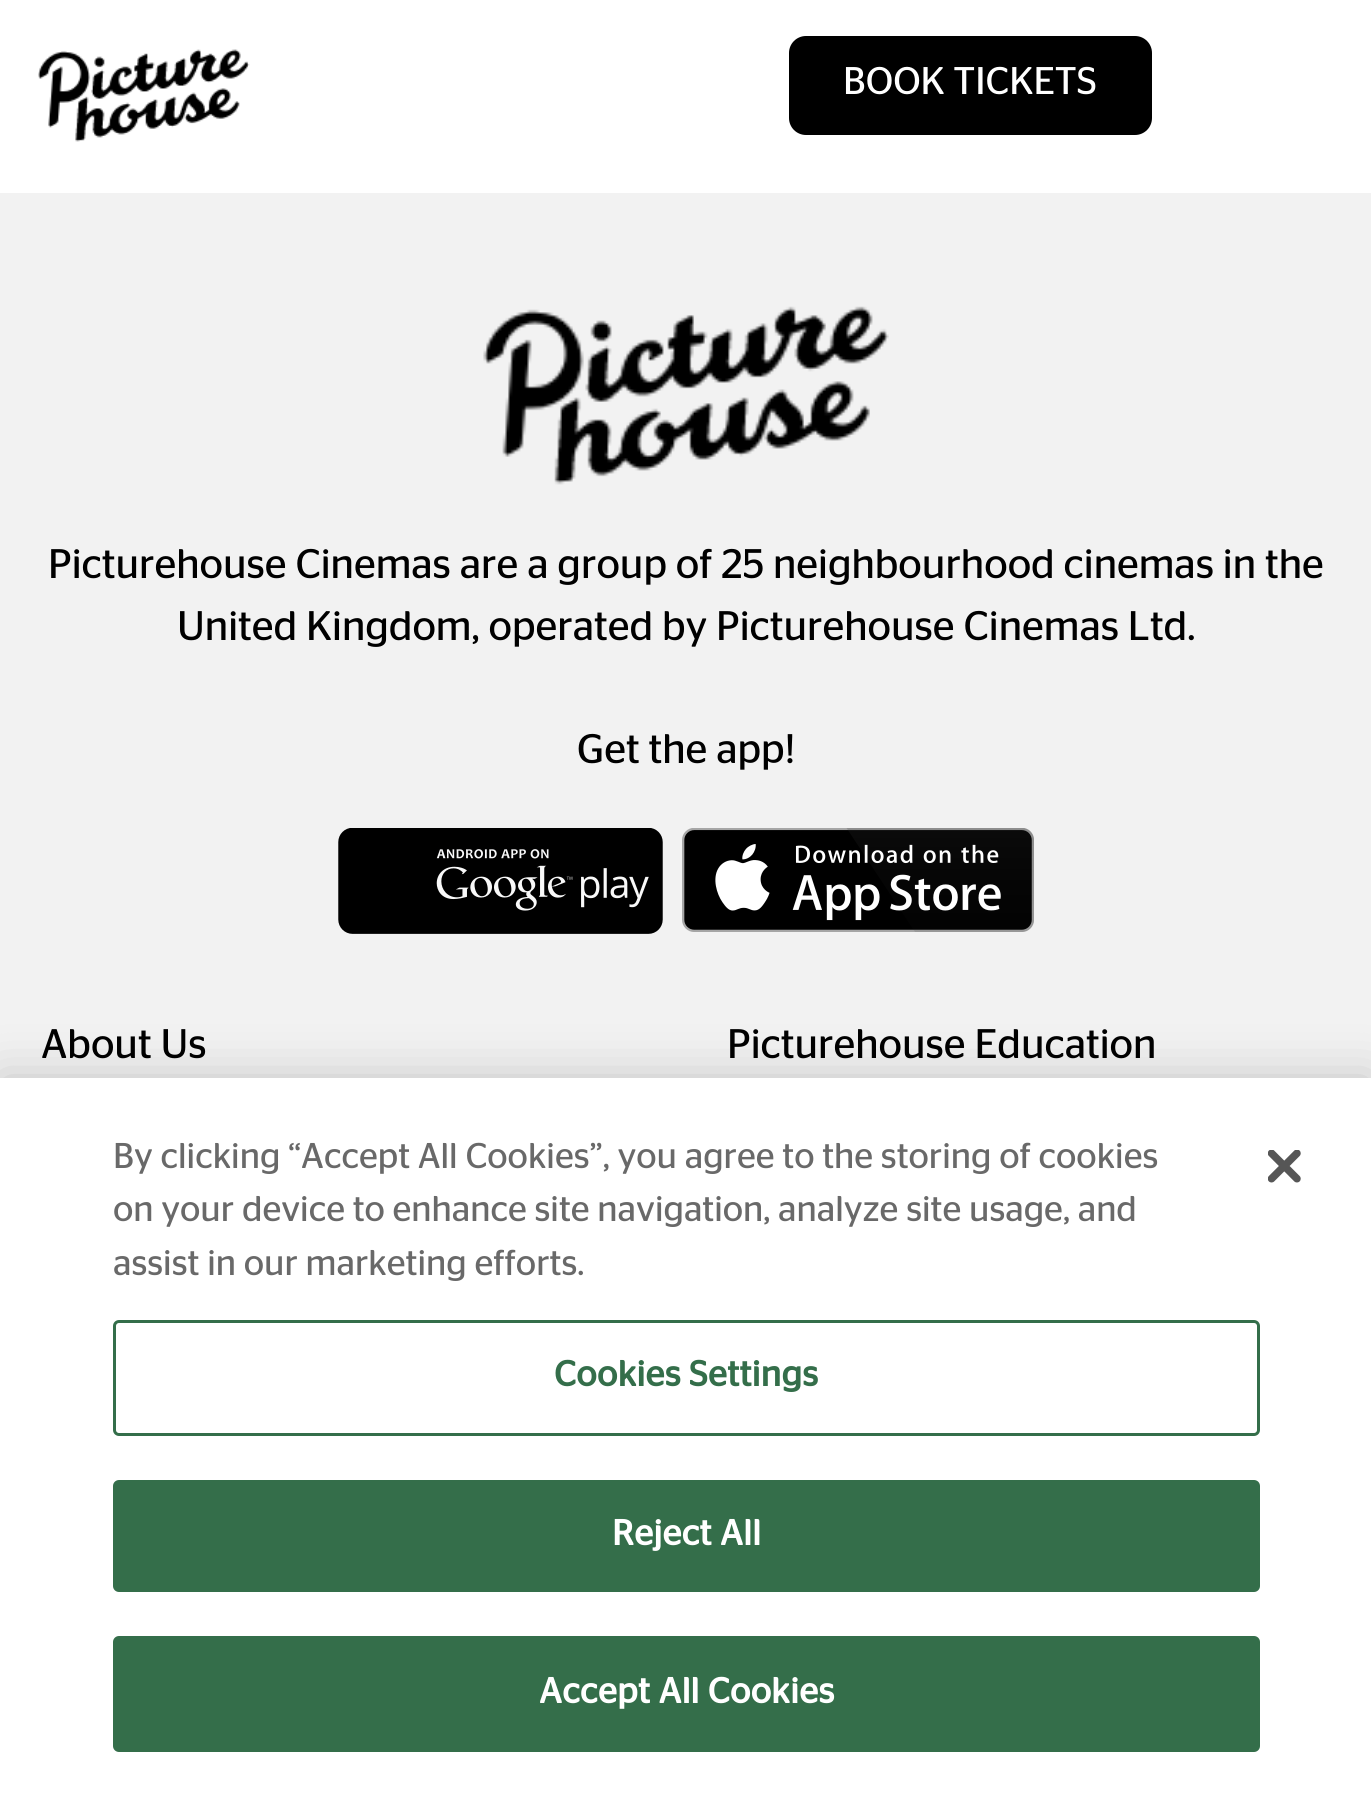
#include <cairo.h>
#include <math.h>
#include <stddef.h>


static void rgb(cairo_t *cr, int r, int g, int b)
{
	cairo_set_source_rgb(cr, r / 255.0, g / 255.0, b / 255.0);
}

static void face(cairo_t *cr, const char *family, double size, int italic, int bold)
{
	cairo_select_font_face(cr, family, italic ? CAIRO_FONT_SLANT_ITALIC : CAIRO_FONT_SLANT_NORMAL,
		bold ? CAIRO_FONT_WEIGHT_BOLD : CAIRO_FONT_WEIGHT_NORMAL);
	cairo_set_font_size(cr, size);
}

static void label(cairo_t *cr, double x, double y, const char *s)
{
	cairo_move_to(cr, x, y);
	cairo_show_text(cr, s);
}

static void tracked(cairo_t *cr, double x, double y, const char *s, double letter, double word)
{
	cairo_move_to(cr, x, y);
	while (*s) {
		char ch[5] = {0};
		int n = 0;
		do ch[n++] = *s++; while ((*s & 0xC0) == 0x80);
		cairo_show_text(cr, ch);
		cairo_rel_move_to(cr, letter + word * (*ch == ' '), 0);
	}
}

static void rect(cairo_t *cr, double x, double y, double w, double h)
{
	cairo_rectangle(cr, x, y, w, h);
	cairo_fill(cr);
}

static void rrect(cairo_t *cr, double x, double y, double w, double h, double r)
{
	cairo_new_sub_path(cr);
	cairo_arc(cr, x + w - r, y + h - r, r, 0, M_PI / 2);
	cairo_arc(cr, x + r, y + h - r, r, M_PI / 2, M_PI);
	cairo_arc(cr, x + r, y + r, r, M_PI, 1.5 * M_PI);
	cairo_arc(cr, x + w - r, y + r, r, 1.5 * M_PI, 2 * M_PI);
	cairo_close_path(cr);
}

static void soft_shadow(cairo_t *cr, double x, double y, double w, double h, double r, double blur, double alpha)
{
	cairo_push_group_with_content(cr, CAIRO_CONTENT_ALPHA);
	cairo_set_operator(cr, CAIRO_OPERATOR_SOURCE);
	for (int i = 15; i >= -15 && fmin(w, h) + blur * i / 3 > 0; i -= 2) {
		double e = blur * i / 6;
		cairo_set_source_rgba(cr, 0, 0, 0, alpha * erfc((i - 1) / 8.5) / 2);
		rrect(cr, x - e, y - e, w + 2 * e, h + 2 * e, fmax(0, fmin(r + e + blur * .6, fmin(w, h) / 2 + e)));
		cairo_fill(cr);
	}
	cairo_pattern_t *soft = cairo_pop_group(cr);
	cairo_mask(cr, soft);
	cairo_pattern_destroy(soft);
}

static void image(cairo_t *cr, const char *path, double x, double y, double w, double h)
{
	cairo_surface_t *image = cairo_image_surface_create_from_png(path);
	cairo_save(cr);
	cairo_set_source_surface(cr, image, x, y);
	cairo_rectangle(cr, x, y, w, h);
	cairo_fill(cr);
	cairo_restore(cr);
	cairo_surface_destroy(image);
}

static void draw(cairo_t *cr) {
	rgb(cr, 242, 242, 242);
	cairo_paint(cr);
	rgb(cr, 255, 255, 255);
	rect(cr, 0, 0, 1371, 193);
	image(cr, "image0.png", 38, 49, 212, 93);
	rgb(cr, 0, 0, 0);
	rrect(cr, 789, 36, 363, 99, 17);
	cairo_fill(cr);
	face(cr, "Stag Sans", 38.5, 0, 0);
	rgb(cr, 255, 255, 255);
	label(cr, 843, 94, "BOOK TICKETS");
	image(cr, "image1.png", 483, 306, 406, 179);
	face(cr, "Stag Sans", 41.25, 0, 0);
	rgb(cr, 0, 0, 0);
	label(cr, 48, 578, "Picturehouse Cinemas are a group of 25 neighbourhood cinemas in the");
	label(cr, 177, 640, "United Kingdom, operated by Picturehouse Cinemas Ltd.");
	label(cr, 577, 763, "Get the app!");
	image(cr, "image2.png", 338, 828, 325, 106);
	image(cr, "image3.png", 682, 828, 352, 104);
	label(cr, 41, 1058, "About Us");
	label(cr, 727, 1058, "Picturehouse Education");
	rgb(cr, 0, 0, 0);
	soft_shadow(cr, 0, 1078, 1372, 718, 0, 25, 0.2);
	rgb(cr, 255, 255, 255);
	rect(cr, 0, 1078, 1371, 717);
	face(cr, "Stag Sans", 35.75, 0, 0);
	rgb(cr, 105, 105, 105);
	label(cr, 113, 1168, "By clicking “Accept All Cookies”, you agree to the storing of cookies");
	label(cr, 113, 1221, "on your device to enhance site navigation, analyze site usage, and");
	label(cr, 113, 1275, "assist in our marketing efforts.");
	rrect(cr, 114.5, 1321.5, 1144, 113, 4.5);
	rgb(cr, 52, 110, 74);
	cairo_set_line_width(cr, 3);
	cairo_stroke(cr);
	face(cr, "Stag Sans", 35.75, 0, 1);
	tracked(cr, 554, 1386, "Cookies Settings", 0.4, 0);
	rrect(cr, 114.5, 1481.5, 1144, 109, 4.5);
	cairo_fill_preserve(cr);
	cairo_stroke(cr);
	rgb(cr, 255, 255, 255);
	tracked(cr, 612, 1545, "Reject All", 0.4, 0);
	rgb(cr, 52, 110, 74);
	rrect(cr, 114.5, 1637.5, 1144, 113, 4.5);
	cairo_fill_preserve(cr);
	cairo_stroke(cr);
	rgb(cr, 255, 255, 255);
	tracked(cr, 539, 1703, "Accept All Cookies", 0.4, 0);
	image(cr, "image4.png", 1268, 1150, 33, 33);
}

int main(void) {
	cairo_surface_t *surface = cairo_image_surface_create(CAIRO_FORMAT_RGB24, 1371, 1795);
	cairo_t *cr = cairo_create(surface);
	cairo_font_options_t *options = cairo_font_options_create();
	cairo_font_options_set_hint_metrics(options, CAIRO_HINT_METRICS_OFF);
	cairo_font_options_set_hint_style(options, CAIRO_HINT_STYLE_NONE);
	cairo_set_font_options(cr, options);
	cairo_set_miter_limit(cr, 4);
	draw(cr);
	cairo_surface_write_to_png(surface, "render.png");
	cairo_font_options_destroy(options);
	cairo_destroy(cr);
	cairo_surface_destroy(surface);
	return 0;
}
